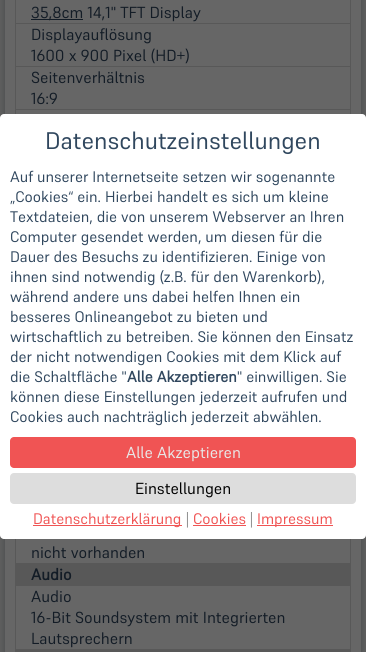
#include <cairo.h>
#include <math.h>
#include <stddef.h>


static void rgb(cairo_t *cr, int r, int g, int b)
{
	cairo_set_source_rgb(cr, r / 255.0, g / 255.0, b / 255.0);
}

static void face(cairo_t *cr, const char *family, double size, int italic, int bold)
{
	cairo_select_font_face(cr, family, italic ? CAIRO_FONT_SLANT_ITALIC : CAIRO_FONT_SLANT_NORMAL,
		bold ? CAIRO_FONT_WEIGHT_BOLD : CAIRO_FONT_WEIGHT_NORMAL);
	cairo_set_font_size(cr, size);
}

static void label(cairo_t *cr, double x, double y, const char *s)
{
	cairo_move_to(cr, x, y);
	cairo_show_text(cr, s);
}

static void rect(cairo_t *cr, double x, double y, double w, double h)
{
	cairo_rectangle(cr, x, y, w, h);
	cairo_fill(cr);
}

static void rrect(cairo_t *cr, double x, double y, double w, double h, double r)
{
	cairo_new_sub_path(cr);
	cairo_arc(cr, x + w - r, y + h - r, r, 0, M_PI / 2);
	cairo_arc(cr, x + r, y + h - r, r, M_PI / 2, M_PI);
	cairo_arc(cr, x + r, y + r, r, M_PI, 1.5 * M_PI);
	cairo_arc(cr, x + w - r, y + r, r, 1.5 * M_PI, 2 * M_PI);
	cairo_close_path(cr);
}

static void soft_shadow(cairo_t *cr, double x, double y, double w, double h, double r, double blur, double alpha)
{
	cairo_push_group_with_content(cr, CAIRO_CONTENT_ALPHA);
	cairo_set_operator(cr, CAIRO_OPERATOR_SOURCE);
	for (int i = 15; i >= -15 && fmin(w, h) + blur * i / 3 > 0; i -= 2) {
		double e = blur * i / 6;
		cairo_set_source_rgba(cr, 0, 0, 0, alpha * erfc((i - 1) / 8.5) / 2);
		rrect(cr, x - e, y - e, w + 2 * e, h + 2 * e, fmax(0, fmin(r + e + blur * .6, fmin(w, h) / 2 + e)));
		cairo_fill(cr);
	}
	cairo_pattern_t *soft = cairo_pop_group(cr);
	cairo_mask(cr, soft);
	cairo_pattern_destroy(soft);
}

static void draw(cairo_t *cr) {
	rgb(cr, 93, 93, 93);
	cairo_paint(cr);
	rgb(cr, 52, 58, 63);
	soft_shadow(cr, 5, -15, 356, 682, 7, 2.5, 0.53);
	rgb(cr, 102, 102, 102);
	rect(cr, 5, 0, 356, 652);
	cairo_rectangle(cr, 15.5, -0.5, 335, 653);
	rgb(cr, 88, 88, 88);
	cairo_set_line_width(cr, 1);
	cairo_stroke(cr);
	rect(cr, 16, 23, 334, 1);
	rgb(cr, 19, 28, 38);
	rect(cr, 31, 19, 52, 1);
	face(cr, "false", 16, 0, 0);
	label(cr, 31, 18, "35,8cm 14,1\" TFT Display");
	rgb(cr, 88, 88, 88);
	rect(cr, 16, 66, 334, 1);
	rgb(cr, 19, 28, 38);
	label(cr, 31, 40, "Displayauflösung");
	label(cr, 31, 61, "1600 x 900 Pixel (HD+)");
	rgb(cr, 88, 88, 88);
	rect(cr, 16, 109, 334, 1);
	rgb(cr, 19, 28, 38);
	label(cr, 31, 83, "Seitenverhältnis");
	label(cr, 31, 104, "16:9");
	rgb(cr, 88, 88, 88);
	rect(cr, 16, 563, 334, 23);
	rgb(cr, 19, 28, 38);
	label(cr, 31, 558, "nicht vorhanden");
	face(cr, "false", 16, 0, 1);
	label(cr, 31, 580, "Audio");
	rgb(cr, 88, 88, 88);
	rect(cr, 16, 649, 334, 3);
	face(cr, "false", 16, 0, 0);
	rgb(cr, 19, 28, 38);
	label(cr, 31, 602, "Audio");
	label(cr, 31, 623, "16-Bit Soundsystem mit Integrierten");
	label(cr, 31, 644, "Lautsprechern");
	rgb(cr, 255, 255, 255);
	rrect(cr, 0, 114, 366, 425, 4);
	cairo_fill(cr);
	face(cr, "false", 24, 0, 0);
	rgb(cr, 48, 71, 94);
	label(cr, 45, 149, "Datenschutzeinstellungen");
	face(cr, "false", 15.3, 0, 0);
	label(cr, 10, 182, "Auf unserer Internetseite setzen wir sogenannte");
	label(cr, 10, 202, "„Cookies“ ein. Hierbei handelt es sich um kleine");
	label(cr, 10, 222, "Textdateien, die von unserem Webserver an Ihren");
	label(cr, 10, 242, "Computer gesendet werden, um diesen für die");
	label(cr, 10, 262, "Dauer des Besuchs zu identifizieren. Einige von");
	label(cr, 10, 282, "ihnen sind notwendig (z.B. für den Warenkorb),");
	label(cr, 10, 302, "während andere uns dabei helfen Ihnen ein");
	label(cr, 10, 322, "besseres Onlineangebot zu bieten und");
	label(cr, 10, 342, "wirtschaftlich zu betreiben. Sie können den Einsatz");
	label(cr, 10, 362, "der nicht notwendigen Cookies mit dem Klick auf");
	label(cr, 10, 382, "die Schaltfläche \"");
	face(cr, "false", 15.3, 0, 1);
	label(cr, 127, 382, "Alle Akzeptieren");
	face(cr, "false", 15.3, 0, 0);
	label(cr, 237, 382, "\" einwilligen. Sie");
	label(cr, 10, 402, "können diese Einstellungen jederzeit aufrufen und");
	label(cr, 10, 422, "Cookies auch nachträglich jederzeit abwählen.");
	rgb(cr, 240, 84, 84);
	rrect(cr, 10, 437, 346, 31, 4);
	cairo_fill(cr);
	face(cr, "false", 16, 0, 0);
	rgb(cr, 232, 232, 232);
	label(cr, 126, 458, "Alle Akzeptieren");
	rgb(cr, 221, 221, 221);
	rrect(cr, 10, 473, 346, 31, 4);
	cairo_fill(cr);
	rgb(cr, 0, 0, 0);
	label(cr, 135, 494, "Einstellungen");
	rgb(cr, 240, 84, 84);
	rect(cr, 33, 525, 149, 1);
	face(cr, "false", 15.3, 0, 0);
	label(cr, 33, 524, "Datenschutzerklärung");
	rgb(cr, 141, 141, 141);
	label(cr, 186, 524, "|");
	rgb(cr, 240, 84, 84);
	label(cr, 193, 524, "Cookies");
	rect(cr, 193, 525, 53, 1);
	rgb(cr, 141, 141, 141);
	label(cr, 250, 524, "|");
	rgb(cr, 240, 84, 84);
	rect(cr, 257, 525, 76, 1);
	label(cr, 257, 524, "Impressum");
}

int main(void) {
	cairo_surface_t *surface = cairo_image_surface_create(CAIRO_FORMAT_RGB24, 366, 652);
	cairo_t *cr = cairo_create(surface);
	cairo_font_options_t *options = cairo_font_options_create();
	cairo_font_options_set_hint_metrics(options, CAIRO_HINT_METRICS_OFF);
	cairo_font_options_set_hint_style(options, CAIRO_HINT_STYLE_NONE);
	cairo_set_font_options(cr, options);
	cairo_set_miter_limit(cr, 4);
	draw(cr);
	cairo_surface_write_to_png(surface, "render.png");
	cairo_font_options_destroy(options);
	cairo_destroy(cr);
	cairo_surface_destroy(surface);
	return 0;
}
